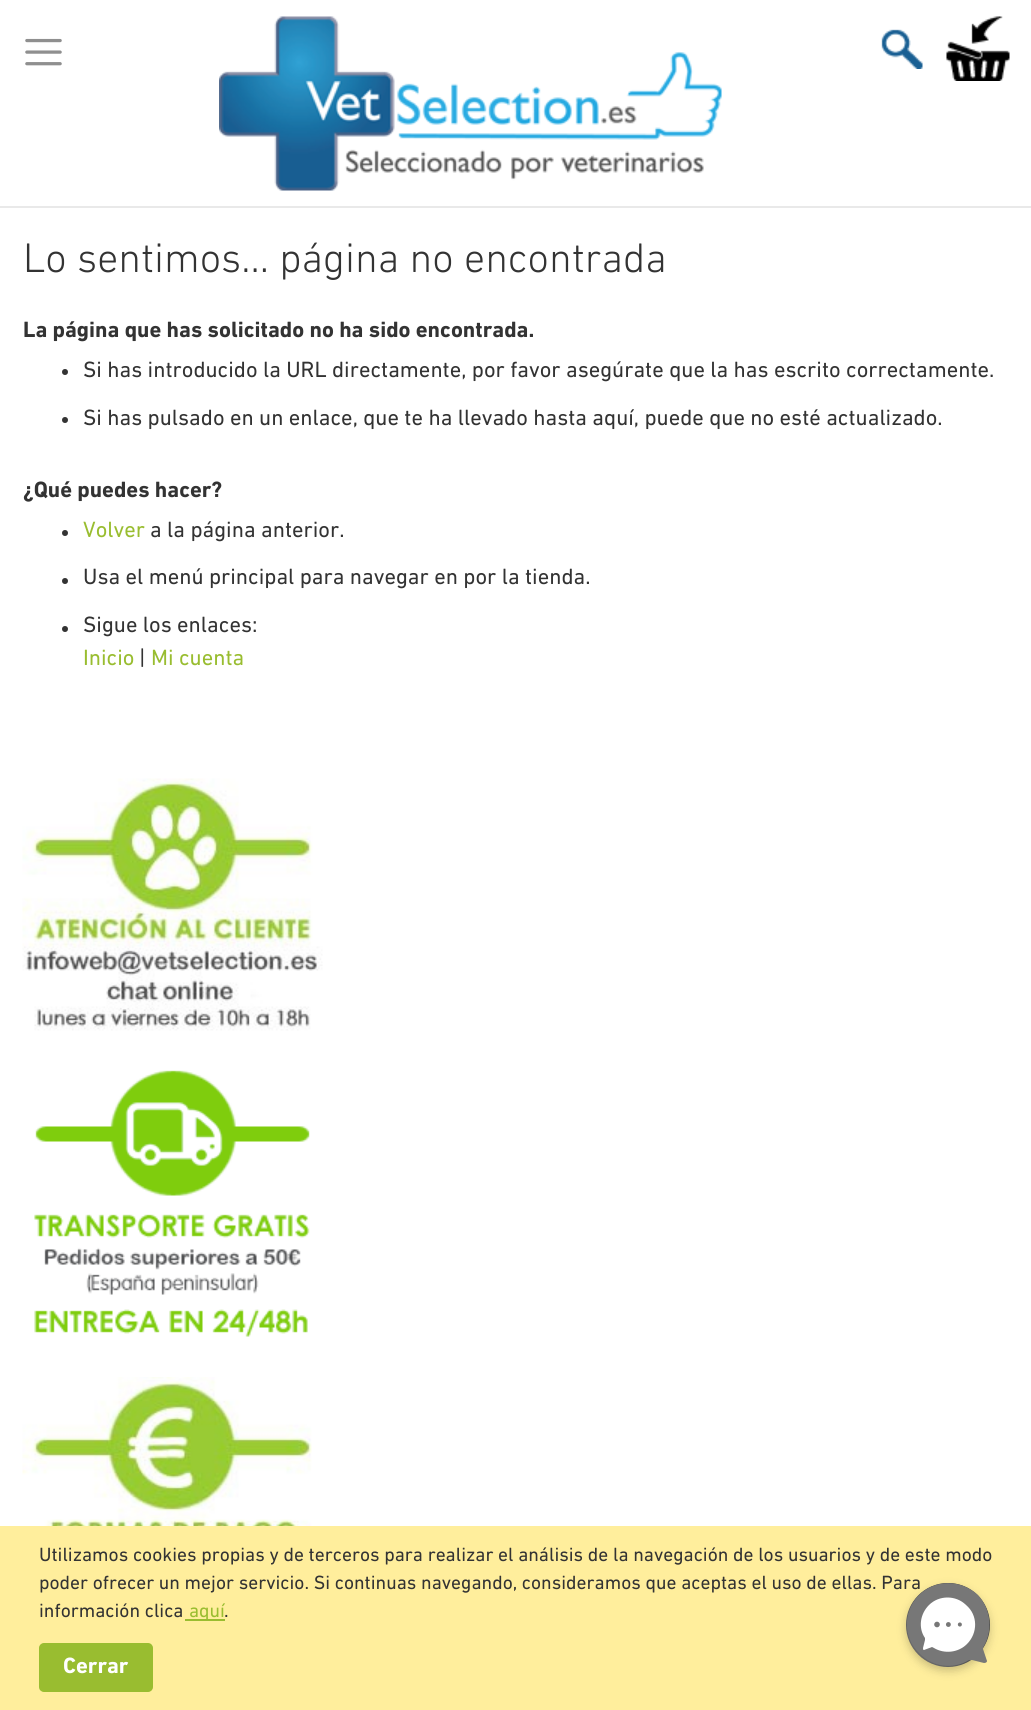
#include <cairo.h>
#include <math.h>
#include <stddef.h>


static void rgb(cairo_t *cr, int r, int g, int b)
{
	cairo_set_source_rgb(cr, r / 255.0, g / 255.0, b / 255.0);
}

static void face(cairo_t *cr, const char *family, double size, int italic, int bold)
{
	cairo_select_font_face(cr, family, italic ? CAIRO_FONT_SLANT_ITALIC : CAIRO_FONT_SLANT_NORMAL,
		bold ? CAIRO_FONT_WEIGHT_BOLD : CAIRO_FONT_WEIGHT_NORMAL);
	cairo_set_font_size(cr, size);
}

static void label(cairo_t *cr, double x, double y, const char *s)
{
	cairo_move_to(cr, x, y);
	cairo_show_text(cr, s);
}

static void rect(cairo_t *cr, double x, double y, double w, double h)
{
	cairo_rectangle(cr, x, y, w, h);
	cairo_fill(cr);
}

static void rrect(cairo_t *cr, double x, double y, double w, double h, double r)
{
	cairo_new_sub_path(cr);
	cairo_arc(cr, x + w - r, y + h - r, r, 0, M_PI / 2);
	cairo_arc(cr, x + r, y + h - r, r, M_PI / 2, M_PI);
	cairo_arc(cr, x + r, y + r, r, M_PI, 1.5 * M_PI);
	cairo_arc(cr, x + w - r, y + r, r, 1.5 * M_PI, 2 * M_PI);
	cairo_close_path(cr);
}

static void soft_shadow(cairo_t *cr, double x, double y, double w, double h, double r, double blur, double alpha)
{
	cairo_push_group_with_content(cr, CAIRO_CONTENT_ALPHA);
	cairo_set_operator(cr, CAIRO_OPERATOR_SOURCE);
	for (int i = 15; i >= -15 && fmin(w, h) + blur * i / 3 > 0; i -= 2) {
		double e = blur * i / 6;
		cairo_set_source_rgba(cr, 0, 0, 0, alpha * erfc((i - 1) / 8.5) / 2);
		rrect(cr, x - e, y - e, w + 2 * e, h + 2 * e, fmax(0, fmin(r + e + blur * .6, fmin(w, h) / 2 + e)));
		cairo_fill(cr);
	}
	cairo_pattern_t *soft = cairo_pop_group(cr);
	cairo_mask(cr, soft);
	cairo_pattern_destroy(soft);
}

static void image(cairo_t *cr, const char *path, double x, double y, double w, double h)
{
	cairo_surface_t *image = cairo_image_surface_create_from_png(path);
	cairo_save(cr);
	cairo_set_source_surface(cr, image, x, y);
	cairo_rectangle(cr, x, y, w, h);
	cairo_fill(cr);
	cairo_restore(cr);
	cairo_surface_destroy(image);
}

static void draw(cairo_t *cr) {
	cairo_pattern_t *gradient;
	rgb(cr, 255, 255, 255);
	cairo_paint(cr);
	rgb(cr, 233, 233, 233);
	rect(cr, 0, 206, 1031, 2);
	image(cr, "image0.png", 25, 38, 37, 28);
	image(cr, "image1.png", 219, 16, 503, 175);
	image(cr, "image2.png", 881, 29, 42, 40);
	image(cr, "image3.png", 946, 16, 64, 65);
	face(cr, "DIN Next Light", 42, 0, 0);
	rgb(cr, 51, 51, 51);
	label(cr, 23, 272, "Lo sentimos... página no encontrada");
	face(cr, "DIN Next", 22.5, 0, 1);
	label(cr, 23, 337, "La página que has solicitado no ha sido encontrada.");
	cairo_new_path(cr);
	cairo_arc(cr, 65, 372, 3, 0, 2 * M_PI);
	cairo_fill(cr);
	face(cr, "DIN Next", 22.5, 0, 0);
	label(cr, 83, 377, "Si has introducido la URL directamente, por favor asegúrate que la has escrito correctamente.");
	cairo_new_path(cr);
	cairo_arc(cr, 65, 420, 3, 0, 2 * M_PI);
	cairo_fill(cr);
	label(cr, 83, 425, "Si has pulsado en un enlace, que te ha llevado hasta aquí, puede que no esté actualizado.");
	face(cr, "DIN Next", 22.5, 0, 1);
	label(cr, 23, 497, "¿Qué puedes hacer?");
	cairo_new_path(cr);
	cairo_arc(cr, 65, 533, 3, 0, 2 * M_PI);
	cairo_fill(cr);
	face(cr, "DIN Next", 22.5, 0, 0);
	rgb(cr, 153, 189, 48);
	label(cr, 83, 537, "Volver");
	rgb(cr, 51, 51, 51);
	label(cr, 150, 537, "a la página anterior.");
	cairo_new_path(cr);
	cairo_arc(cr, 65, 581, 3, 0, 2 * M_PI);
	cairo_fill(cr);
	label(cr, 83, 584, "Usa el menú principal para navegar en por la tienda.");
	cairo_new_path(cr);
	cairo_arc(cr, 65, 629, 3, 0, 2 * M_PI);
	cairo_fill(cr);
	label(cr, 83, 632, "Sigue los enlaces:");
	rgb(cr, 153, 189, 48);
	label(cr, 83, 665, "Inicio");
	rgb(cr, 51, 51, 51);
	label(cr, 139, 665, "|");
	rgb(cr, 153, 189, 48);
	label(cr, 151, 665, "Mi cuenta");
	image(cr, "image4.png", 22, 778, 301, 253);
	image(cr, "image5.png", 34, 1070, 276, 267);
	image(cr, "image6.png", 22, 1377, 290, 149);
	rgb(cr, 255, 238, 156);
	rect(cr, 0, 1526, 1031, 184);
	face(cr, "DIN Next", 19.5, 0, 0);
	rgb(cr, 51, 51, 51);
	label(cr, 39, 1561, "Utilizamos cookies propias y de terceros para realizar el análisis de la navegación de los usuarios y de este modo");
	label(cr, 39, 1589, "poder ofrecer un mejor servicio. Si continuas navegando, consideramos que aceptas el uso de ellas. Para");
	label(cr, 39, 1617, "información clica");
	rgb(cr, 153, 189, 48);
	rect(cr, 185, 1619, 40, 2);
	label(cr, 189, 1617, "aquí");
	rgb(cr, 51, 51, 51);
	label(cr, 224, 1617, ".");
	rgb(cr, 153, 189, 48);
	rrect(cr, 40, 1644, 112, 47, 4);
	cairo_fill_preserve(cr);
	cairo_stroke(cr);
	face(cr, "DIN Next", 22.5, 0, 1);
	rgb(cr, 255, 255, 255);
	label(cr, 63, 1673, "Cerrar");
	rgb(cr, 0, 0, 0);
	soft_shadow(cr, 906, 1587, 84, 84, 42, 4.5, 0.2);
	gradient = cairo_pattern_create_linear(906, 1667, 990, 1583);
	cairo_pattern_add_color_stop_rgba(gradient, 0, 0.467, 0.467, 0.467, 1);
	cairo_pattern_add_color_stop_rgba(gradient, 1, 0.133, 0.133, 0.133, 1);
	cairo_set_source(cr, gradient);
	cairo_pattern_destroy(gradient);
	cairo_arc(cr, 948, 1625, 42, 0, 2 * M_PI);
	cairo_fill(cr);
	rgb(cr, 119, 119, 119);
	cairo_new_path(cr);
	cairo_move_to(cr, 978, 1595);
	cairo_curve_to(cr, 961, 1579, 934, 1579, 918, 1596);
	cairo_curve_to(cr, 903, 1612, 903, 1638, 919, 1653);
	cairo_curve_to(cr, 932, 1667, 953, 1670, 969, 1660);
	cairo_curve_to(cr, 970, 1660, 971, 1660, 972, 1660);
	cairo_line_to(cr, 984, 1663);
	cairo_curve_to(cr, 986, 1663, 987, 1662, 987, 1661);
	cairo_line_to(cr, 983, 1649);
	cairo_curve_to(cr, 983, 1648, 983, 1647, 984, 1646);
	cairo_curve_to(cr, 993, 1630, 991, 1609, 978, 1595);
	cairo_close_path(cr);
	cairo_fill(cr);
	rgb(cr, 255, 255, 255);
	cairo_new_path(cr);
	cairo_move_to(cr, 967, 1644);
	cairo_curve_to(cr, 978, 1633, 978, 1615, 966, 1605);
	cairo_curve_to(cr, 956, 1595, 939, 1595, 929, 1605);
	cairo_curve_to(cr, 920, 1614, 918, 1628, 925, 1638);
	cairo_line_to(cr, 925, 1640);
	cairo_line_to(cr, 923, 1648);
	cairo_curve_to(cr, 923, 1649, 923, 1650, 924, 1650);
	cairo_line_to(cr, 932, 1647);
	cairo_line_to(cr, 934, 1648);
	cairo_curve_to(cr, 944, 1654, 958, 1653, 967, 1644);
	cairo_close_path(cr);
	cairo_fill(cr);
	image(cr, "image7.png", 934, 1621, 28, 7);
}

int main(void) {
	cairo_surface_t *surface = cairo_image_surface_create(CAIRO_FORMAT_RGB24, 1031, 1710);
	cairo_t *cr = cairo_create(surface);
	cairo_font_options_t *options = cairo_font_options_create();
	cairo_font_options_set_hint_metrics(options, CAIRO_HINT_METRICS_OFF);
	cairo_font_options_set_hint_style(options, CAIRO_HINT_STYLE_NONE);
	cairo_set_font_options(cr, options);
	cairo_set_miter_limit(cr, 4);
	draw(cr);
	cairo_surface_write_to_png(surface, "render.png");
	cairo_font_options_destroy(options);
	cairo_destroy(cr);
	cairo_surface_destroy(surface);
	return 0;
}
